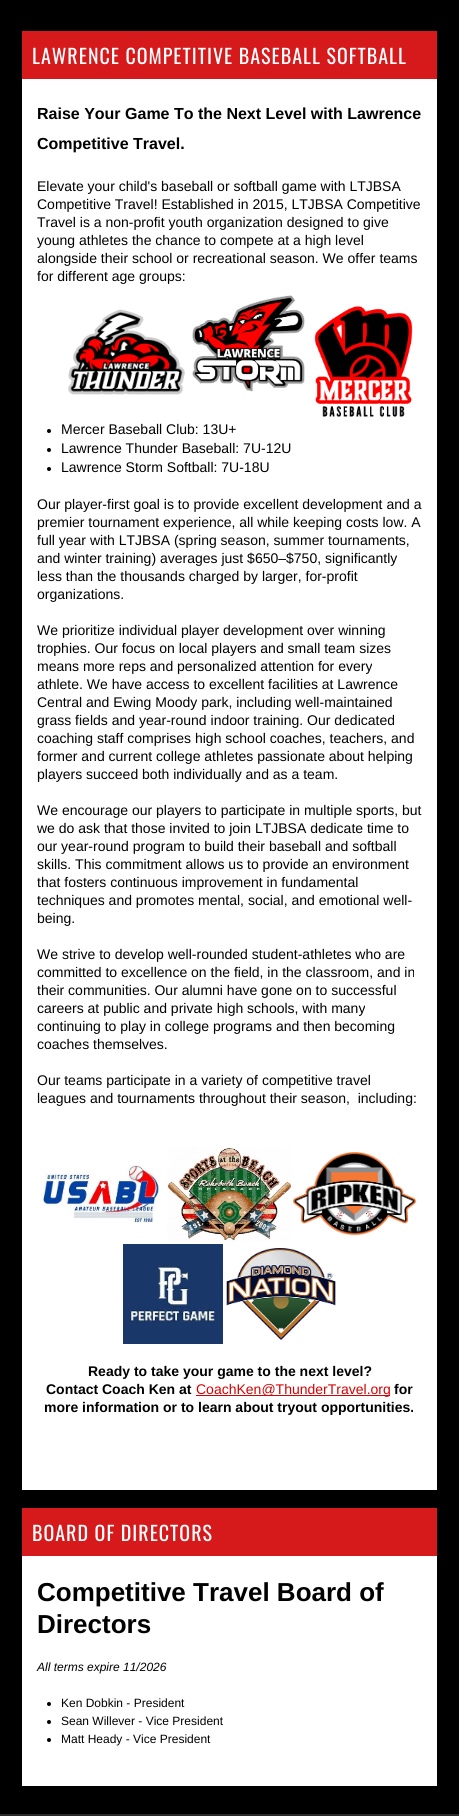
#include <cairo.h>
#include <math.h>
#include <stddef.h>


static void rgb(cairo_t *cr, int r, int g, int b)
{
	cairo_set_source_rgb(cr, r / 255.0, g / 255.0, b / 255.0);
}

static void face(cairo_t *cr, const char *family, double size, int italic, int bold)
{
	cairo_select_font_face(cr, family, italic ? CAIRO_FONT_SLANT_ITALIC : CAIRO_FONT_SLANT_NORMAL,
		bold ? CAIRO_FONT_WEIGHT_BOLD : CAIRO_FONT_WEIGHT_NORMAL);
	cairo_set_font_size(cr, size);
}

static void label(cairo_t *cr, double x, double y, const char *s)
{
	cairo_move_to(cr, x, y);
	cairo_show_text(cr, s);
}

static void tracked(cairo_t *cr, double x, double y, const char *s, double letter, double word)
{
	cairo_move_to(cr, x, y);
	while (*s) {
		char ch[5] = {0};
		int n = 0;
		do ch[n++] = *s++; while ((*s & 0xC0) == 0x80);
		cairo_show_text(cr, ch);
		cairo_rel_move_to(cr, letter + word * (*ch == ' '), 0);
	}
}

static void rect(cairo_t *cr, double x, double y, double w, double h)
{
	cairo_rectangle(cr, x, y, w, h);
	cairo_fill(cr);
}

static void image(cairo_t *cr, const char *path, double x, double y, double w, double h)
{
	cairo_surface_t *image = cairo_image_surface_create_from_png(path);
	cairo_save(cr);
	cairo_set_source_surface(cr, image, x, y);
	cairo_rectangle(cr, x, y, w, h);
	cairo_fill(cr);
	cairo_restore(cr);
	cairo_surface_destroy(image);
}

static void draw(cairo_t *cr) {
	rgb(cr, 0, 0, 0);
	cairo_paint(cr);
	rgb(cr, 214, 25, 27);
	rect(cr, 22, 31, 415, 48);
	face(cr, "Oswald", 20, 0, 0);
	rgb(cr, 255, 255, 255);
	tracked(cr, 32, 64, "LAWRENCE COMPETITIVE BASEBALL SOFTBALL", 1, 0);
	rect(cr, 22, 79, 415, 1411);
	face(cr, "Liberation Sans", 16, 0, 1);
	rgb(cr, 0, 0, 0);
	label(cr, 37, 119, "Raise Your Game To the Next Level with Lawrence");
	label(cr, 37, 149, "Competitive Travel.");
	face(cr, "Liberation Sans", 14, 0, 0);
	label(cr, 37, 191, "Elevate your child's baseball or softball game with LTJBSA");
	label(cr, 37, 209, "Competitive Travel! Established in 2015, LTJBSA Competitive");
	label(cr, 37, 227, "Travel is a non-profit youth organization designed to give");
	label(cr, 37, 245, "young athletes the chance to compete at a high level");
	label(cr, 37, 263, "alongside their school or recreational season. We offer teams");
	label(cr, 37, 281, "for different age groups:");
	image(cr, "image0.png", 68, 309, 117, 86);
	image(cr, "image1.png", 192, 295, 113, 97);
	image(cr, "image2.png", 314, 306, 99, 111);
	cairo_arc(cr, 49, 431, 2, 0, 2 * M_PI);
	cairo_fill(cr);
	label(cr, 61, 434, "Mercer Baseball Club: 13U+");
	cairo_new_path(cr);
	cairo_arc(cr, 49, 450, 2, 0, 2 * M_PI);
	cairo_fill(cr);
	label(cr, 61, 453, "Lawrence Thunder Baseball: 7U-12U");
	cairo_new_path(cr);
	cairo_arc(cr, 49, 469, 2, 0, 2 * M_PI);
	cairo_fill(cr);
	label(cr, 61, 472, "Lawrence Storm Softball: 7U-18U");
	label(cr, 37, 509, "Our player-first goal is to provide excellent development and a");
	label(cr, 37, 527, "premier tournament experience, all while keeping costs low. A");
	label(cr, 37, 545, "full year with LTJBSA (spring season, summer tournaments,");
	label(cr, 37, 563, "and winter training) averages just $650–$750, significantly");
	label(cr, 37, 581, "less than the thousands charged by larger, for-profit");
	label(cr, 37, 599, "organizations.");
	label(cr, 37, 635, "We prioritize individual player development over winning");
	label(cr, 37, 653, "trophies. Our focus on local players and small team sizes");
	label(cr, 37, 671, "means more reps and personalized attention for every");
	label(cr, 37, 689, "athlete. We have access to excellent facilities at Lawrence");
	label(cr, 37, 707, "Central and Ewing Moody park, including well-maintained");
	label(cr, 37, 725, "grass fields and year-round indoor training. Our dedicated");
	label(cr, 37, 743, "coaching staff comprises high school coaches, teachers, and");
	label(cr, 37, 761, "former and current college athletes passionate about helping");
	label(cr, 37, 779, "players succeed both individually and as a team.");
	label(cr, 37, 815, "We encourage our players to participate in multiple sports, but");
	label(cr, 37, 833, "we do ask that those invited to join LTJBSA dedicate time to");
	label(cr, 37, 851, "our year-round program to build their baseball and softball");
	label(cr, 37, 869, "skills. This commitment allows us to provide an environment");
	label(cr, 37, 887, "that fosters continuous improvement in fundamental");
	label(cr, 37, 905, "techniques and promotes mental, social, and emotional well-");
	label(cr, 37, 923, "being.");
	label(cr, 37, 959, "We strive to develop well-rounded student-athletes who are");
	label(cr, 37, 977, "committed to excellence on the field, in the classroom, and in");
	label(cr, 37, 995, "their communities. Our alumni have gone on to successful");
	label(cr, 37, 1013, "careers at public and private high schools, with many");
	label(cr, 37, 1031, "continuing to play in college programs and then becoming");
	label(cr, 37, 1049, "coaches themselves.");
	label(cr, 37, 1085, "Our teams participate in a variety of competitive travel");
	label(cr, 37, 1103, "leagues and tournaments throughout their season,  including:");
	image(cr, "image3.png", 39, 1162, 121, 61);
	image(cr, "image4.png", 167, 1147, 125, 94);
	image(cr, "image5.png", 293, 1152, 124, 84);
	image(cr, "image6.png", 123, 1244, 100, 100);
	image(cr, "image7.png", 226, 1248, 110, 92);
	face(cr, "Liberation Sans", 14, 0, 1);
	label(cr, 88, 1376, "Ready to take your game to the next level?");
	label(cr, 46, 1394, "Contact Coach Ken at");
	rgb(cr, 214, 0, 2);
	rect(cr, 196, 1395, 194, 1);
	face(cr, "Liberation Sans", 14, 0, 0);
	label(cr, 196, 1394, "CoachKen@ThunderTravel.org");
	face(cr, "Liberation Sans", 14, 0, 1);
	rgb(cr, 0, 0, 0);
	label(cr, 394, 1394, "for");
	label(cr, 44, 1412, "more information or to learn about tryout opportunities.");
	rgb(cr, 214, 25, 27);
	rect(cr, 22, 1508, 415, 48);
	face(cr, "Oswald", 20, 0, 0);
	rgb(cr, 255, 255, 255);
	tracked(cr, 32, 1541, "BOARD OF DIRECTORS", 1, 0);
	rect(cr, 22, 1556, 415, 230);
	face(cr, "Liberation Sans", 26, 0, 1);
	rgb(cr, 0, 0, 0);
	label(cr, 37, 1601, "Competitive Travel Board of");
	label(cr, 37, 1633, "Directors");
	face(cr, "Liberation Sans", 12, 1, 0);
	label(cr, 37, 1671, "All terms expire 11/2026");
	cairo_new_path(cr);
	cairo_arc(cr, 49, 1704, 2, 0, 2 * M_PI);
	cairo_fill(cr);
	face(cr, "Liberation Sans", 12, 0, 0);
	label(cr, 61, 1707, "Ken Dobkin - President");
	cairo_new_path(cr);
	cairo_arc(cr, 49, 1722, 2, 0, 2 * M_PI);
	cairo_fill(cr);
	label(cr, 61, 1725, "Sean Willever - Vice President");
	cairo_new_path(cr);
	cairo_arc(cr, 49, 1740, 2, 0, 2 * M_PI);
	cairo_fill(cr);
	label(cr, 61, 1743, "Matt Heady - Vice President");
	rgb(cr, 41, 41, 41);
	rect(cr, 0, 1814, 459, 2);
}

int main(void) {
	cairo_surface_t *surface = cairo_image_surface_create(CAIRO_FORMAT_RGB24, 459, 1816);
	cairo_t *cr = cairo_create(surface);
	cairo_font_options_t *options = cairo_font_options_create();
	cairo_font_options_set_hint_metrics(options, CAIRO_HINT_METRICS_OFF);
	cairo_font_options_set_hint_style(options, CAIRO_HINT_STYLE_NONE);
	cairo_set_font_options(cr, options);
	cairo_set_miter_limit(cr, 4);
	draw(cr);
	cairo_surface_write_to_png(surface, "render.png");
	cairo_font_options_destroy(options);
	cairo_destroy(cr);
	cairo_surface_destroy(surface);
	return 0;
}
